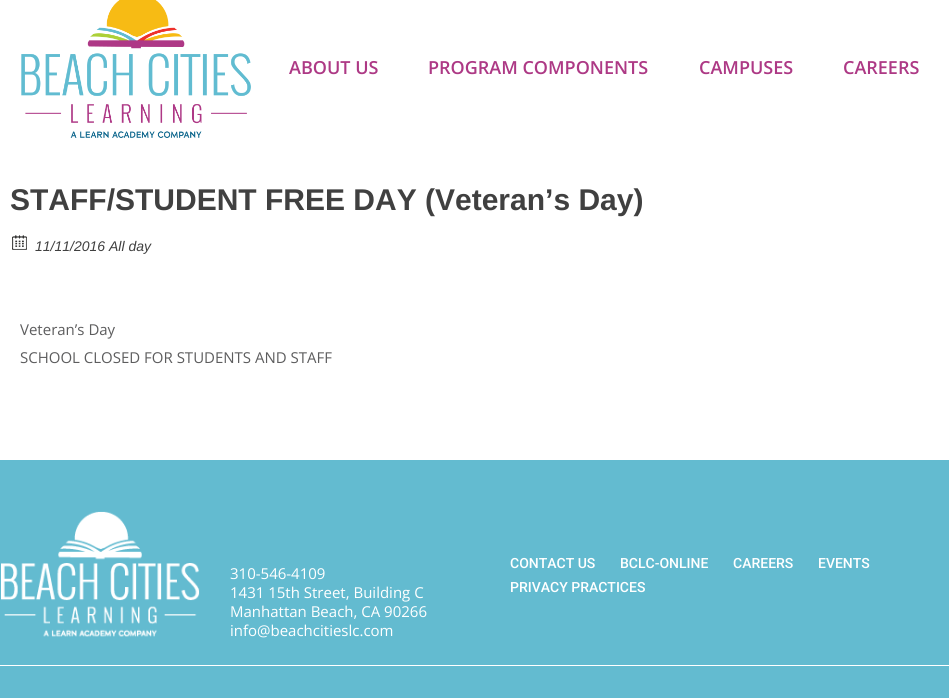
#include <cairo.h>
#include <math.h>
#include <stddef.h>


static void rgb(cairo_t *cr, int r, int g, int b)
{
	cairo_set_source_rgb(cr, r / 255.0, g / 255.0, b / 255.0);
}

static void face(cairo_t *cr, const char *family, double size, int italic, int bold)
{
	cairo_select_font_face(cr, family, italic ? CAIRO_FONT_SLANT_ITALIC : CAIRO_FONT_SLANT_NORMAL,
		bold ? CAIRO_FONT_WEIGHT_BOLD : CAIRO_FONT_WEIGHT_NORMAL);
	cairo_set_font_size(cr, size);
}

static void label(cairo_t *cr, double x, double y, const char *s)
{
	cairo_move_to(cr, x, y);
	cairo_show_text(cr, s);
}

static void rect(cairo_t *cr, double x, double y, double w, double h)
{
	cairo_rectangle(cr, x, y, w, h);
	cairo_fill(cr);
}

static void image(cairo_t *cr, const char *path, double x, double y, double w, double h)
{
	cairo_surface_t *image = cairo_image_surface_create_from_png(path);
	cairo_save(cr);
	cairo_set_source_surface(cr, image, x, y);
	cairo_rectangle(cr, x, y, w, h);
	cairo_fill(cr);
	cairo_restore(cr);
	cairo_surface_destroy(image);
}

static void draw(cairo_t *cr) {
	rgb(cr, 255, 255, 255);
	cairo_paint(cr);
	image(cr, "image0.png", 21, 0, 230, 138);
	face(cr, "Open Sans SemiBold", 18, 0, 0);
	rgb(cr, 173, 57, 133);
	label(cr, 289, 74, "ABOUT US");
	label(cr, 428, 74, "PROGRAM COMPONENTS");
	label(cr, 699, 74, "CAMPUSES");
	label(cr, 843, 74, "CAREERS");
	face(cr, "Liberation Sans", 30, 0, 1);
	rgb(cr, 64, 64, 64);
	label(cr, 10, 210, "STAFF/STUDENT FREE DAY (Veteran’s Day)");
	image(cr, "image1.png", 12, 235, 15, 15);
	face(cr, "Liberation Sans", 14, 1, 0);
	label(cr, 35, 251, "11/11/2016 All day");
	face(cr, "Open Sans", 15, 0, 0);
	rgb(cr, 93, 93, 94);
	label(cr, 20, 335, "Veteran’s Day");
	label(cr, 20, 363, "SCHOOL CLOSED FOR STUDENTS AND STAFF");
	rgb(cr, 99, 187, 208);
	rect(cr, 0, 460, 949, 238);
	image(cr, "image2.png", 1, 511, 199, 126);
	rgb(cr, 255, 255, 255);
	label(cr, 230, 579, "310-546-4109");
	label(cr, 230, 598, "1431 15th Street, Building C");
	label(cr, 230, 617, "Manhattan Beach, CA 90266");
	label(cr, 230, 636, "info@beachcitieslc.com");
	face(cr, "Roboto Medium", 14, 0, 0);
	label(cr, 510, 568, "CONTACT US");
	label(cr, 620, 568, "BCLC-ONLINE");
	label(cr, 733, 568, "CAREERS");
	label(cr, 818, 568, "EVENTS");
	label(cr, 510, 592, "PRIVACY PRACTICES");
	rect(cr, 0, 665, 949, 1);
}

int main(void) {
	cairo_surface_t *surface = cairo_image_surface_create(CAIRO_FORMAT_RGB24, 949, 698);
	cairo_t *cr = cairo_create(surface);
	cairo_font_options_t *options = cairo_font_options_create();
	cairo_font_options_set_hint_metrics(options, CAIRO_HINT_METRICS_OFF);
	cairo_font_options_set_hint_style(options, CAIRO_HINT_STYLE_NONE);
	cairo_set_font_options(cr, options);
	cairo_set_miter_limit(cr, 4);
	draw(cr);
	cairo_surface_write_to_png(surface, "render.png");
	cairo_font_options_destroy(options);
	cairo_destroy(cr);
	cairo_surface_destroy(surface);
	return 0;
}
